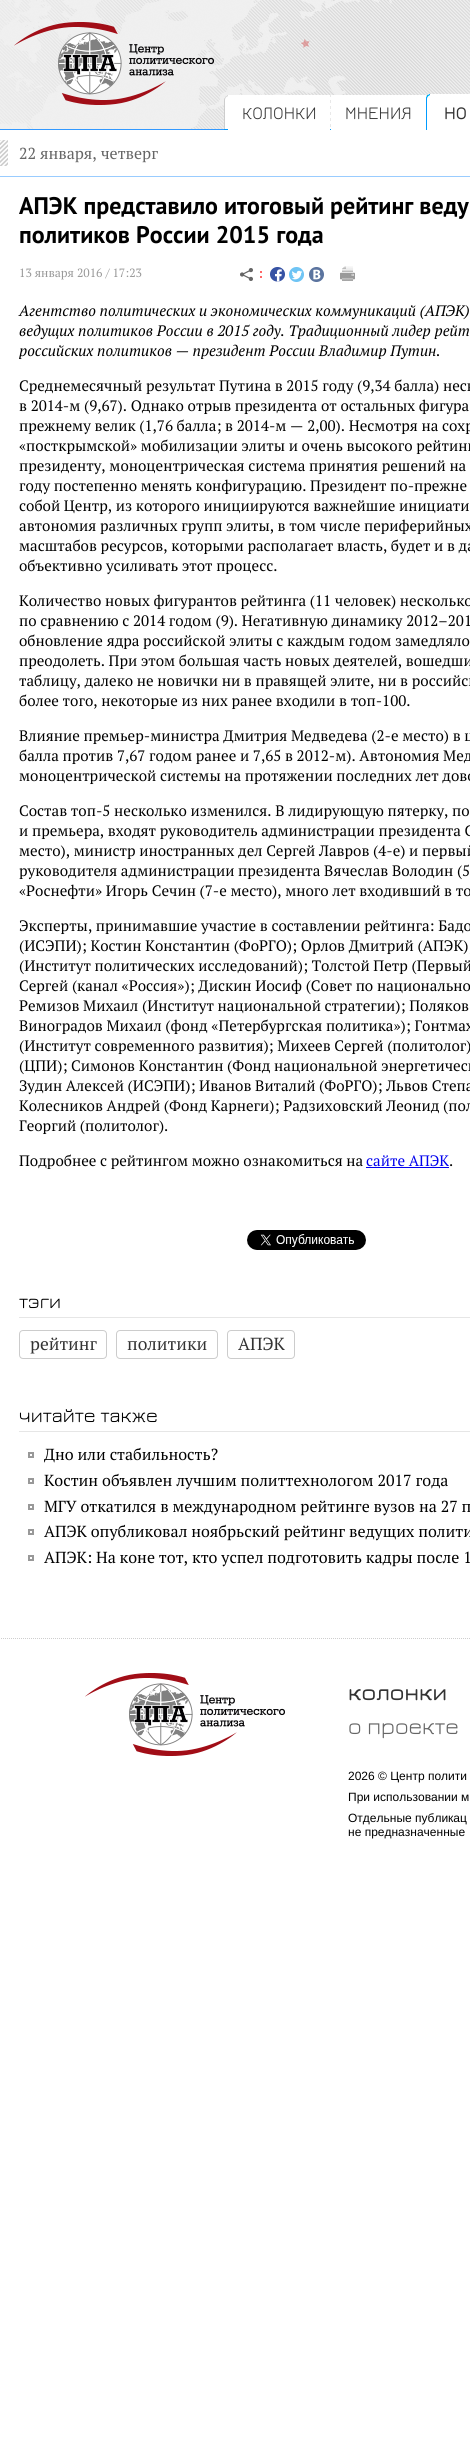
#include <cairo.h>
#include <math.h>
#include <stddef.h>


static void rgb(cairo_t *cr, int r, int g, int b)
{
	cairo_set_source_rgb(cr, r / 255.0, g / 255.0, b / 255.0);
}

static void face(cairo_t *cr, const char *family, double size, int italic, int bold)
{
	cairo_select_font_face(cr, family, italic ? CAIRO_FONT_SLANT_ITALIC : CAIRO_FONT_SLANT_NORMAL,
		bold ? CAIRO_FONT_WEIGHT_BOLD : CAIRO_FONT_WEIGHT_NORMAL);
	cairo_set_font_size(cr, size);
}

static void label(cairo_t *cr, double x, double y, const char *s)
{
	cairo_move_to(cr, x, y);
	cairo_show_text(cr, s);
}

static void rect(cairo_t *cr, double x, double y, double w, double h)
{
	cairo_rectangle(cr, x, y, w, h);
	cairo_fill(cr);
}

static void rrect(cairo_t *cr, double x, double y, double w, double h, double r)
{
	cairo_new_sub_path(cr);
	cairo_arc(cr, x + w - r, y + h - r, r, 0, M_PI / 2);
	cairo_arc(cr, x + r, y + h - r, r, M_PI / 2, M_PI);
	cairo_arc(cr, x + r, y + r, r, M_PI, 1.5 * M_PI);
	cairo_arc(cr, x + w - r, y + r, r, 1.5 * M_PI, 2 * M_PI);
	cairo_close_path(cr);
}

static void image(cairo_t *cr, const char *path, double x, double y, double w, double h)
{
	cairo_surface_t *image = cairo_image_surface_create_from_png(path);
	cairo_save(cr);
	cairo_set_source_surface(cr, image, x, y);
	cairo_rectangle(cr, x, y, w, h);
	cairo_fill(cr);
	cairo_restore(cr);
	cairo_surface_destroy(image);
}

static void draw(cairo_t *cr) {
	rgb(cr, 255, 255, 255);
	cairo_paint(cr);
	image(cr, "image0.png", 0, 0, 470, 129);
	rgb(cr, 51, 153, 255);
	rect(cr, 0, 129, 224, 1);
	image(cr, "image1.png", 14, 22, 200, 83);
	image(cr, "image2.png", 224, 95, 4, 35);
	rgb(cr, 255, 255, 255);
	rect(cr, 228, 95, 102, 34);
	face(cr, "Jura", 18, 0, 0);
	rgb(cr, 51, 51, 51);
	label(cr, 242, 119, "КОЛОНКИ");
	image(cr, "image3.png", 330, 94, 1, 36);
	rgb(cr, 255, 255, 255);
	rect(cr, 331, 95, 95, 34);
	rgb(cr, 51, 51, 51);
	label(cr, 345, 119, "МНЕНИЯ");
	image(cr, "image4.png", 426, 94, 4, 36);
	rgb(cr, 255, 255, 255);
	rect(cr, 430, 94, 40, 35);
	face(cr, "Jura SemiBold", 18, 0, 0);
	rgb(cr, 51, 51, 51);
	label(cr, 444, 119, "НО");
	image(cr, "image5.png", 0, 140, 8, 26);
	rgb(cr, 153, 204, 255);
	rect(cr, 0, 176, 470, 1);
	face(cr, "PT Serif", 16, 0, 0);
	rgb(cr, 102, 102, 102);
	label(cr, 19, 159, "22 января, четверг");
	face(cr, "PT Sans", 24, 0, 1);
	rgb(cr, 0, 0, 0);
	label(cr, 19, 214, "АПЭК представило итоговый рейтинг веду");
	label(cr, 19, 243, "политиков России 2015 года");
	face(cr, "PT Serif", 12, 0, 0);
	rgb(cr, 153, 153, 153);
	label(cr, 19, 277, "13 января 2016 / 17:23");
	image(cr, "image6.png", 240, 268, 22, 13);
	image(cr, "image7.png", 270, 267, 15, 15);
	image(cr, "image8.png", 289, 267, 15, 15);
	image(cr, "image9.png", 309, 267, 15, 15);
	image(cr, "image10.png", 340, 266, 15, 15);
	face(cr, "PT Serif", 15.1, 1, 0);
	rgb(cr, 0, 0, 0);
	label(cr, 19, 316, "Агентство политических и экономических коммуникаций (АПЭК)");
	label(cr, 19, 336, "ведущих политиков России в 2015 году. Традиционный лидер рейт");
	label(cr, 19, 356, "российских политиков — президент России Владимир Путин.");
	face(cr, "PT Serif", 15.1, 0, 0);
	label(cr, 19, 391, "Среднемесячный результат Путина в 2015 году (9,34 балла) неск");
	label(cr, 19, 411, "в 2014-м (9,67). Однако отрыв президента от остальных фигура");
	label(cr, 19, 431, "прежнему велик (1,76 балла; в 2014-м — 2,00). Несмотря на сохр");
	label(cr, 19, 451, "«посткрымской» мобилизации элиты и очень высокого рейтинг");
	label(cr, 19, 471, "президенту, моноцентрическая система принятия решений на");
	label(cr, 19, 491, "году постепенно менять конфигурацию. Президент по-прежне");
	label(cr, 19, 511, "собой Центр, из которого инициируются важнейшие инициати");
	label(cr, 19, 531, "автономия различных групп элиты, в том числе периферийных");
	label(cr, 19, 551, "масштабов ресурсов, которыми располагает власть, будет и в да");
	label(cr, 19, 571, "объективно усиливать этот процесс.");
	label(cr, 19, 606, "Количество новых фигурантов рейтинга (11 человек) несколько");
	label(cr, 19, 626, "по сравнению с 2014 годом (9). Негативную динамику 2012–201");
	label(cr, 19, 646, "обновление ядра российской элиты с каждым годом замедляло");
	label(cr, 19, 666, "преодолеть. При этом большая часть новых деятелей, вошедши");
	label(cr, 19, 686, "таблицу, далеко не новички ни в правящей элите, ни в российск");
	label(cr, 19, 706, "более того, некоторые из них ранее входили в топ-100.");
	label(cr, 19, 741, "Влияние премьер-министра Дмитрия Медведева (2-е место) в ц");
	label(cr, 19, 761, "балла против 7,67 годом ранее и 7,65 в 2012-м). Автономия Мед");
	label(cr, 19, 781, "моноцентрической системы на протяжении последних лет дово");
	label(cr, 19, 816, "Состав топ-5 несколько изменился. В лидирующую пятерку, по");
	label(cr, 19, 836, "и премьера, входят руководитель администрации президента С");
	label(cr, 19, 856, "место), министр иностранных дел Сергей Лавров (4-е) и первый");
	label(cr, 19, 876, "руководителя администрации президента Вячеслав Володин (5");
	label(cr, 19, 896, "«Роснефти» Игорь Сечин (7-е место), много лет входивший в то");
	label(cr, 19, 931, "Эксперты, принимавшие участие в составлении рейтинга: Бадо");
	label(cr, 19, 951, "(ИСЭПИ); Костин Константин (ФоРГО); Орлов Дмитрий (АПЭК);");
	label(cr, 19, 971, "(Институт политических исследований); Толстой Петр (Первый");
	label(cr, 19, 991, "Сергей (канал «Россия»); Дискин Иосиф (Совет по национально");
	label(cr, 19, 1011, "Ремизов Михаил (Институт национальной стратегии); Поляков");
	label(cr, 19, 1031, "Виноградов Михаил (фонд «Петербургская политика»); Гонтмах");
	label(cr, 19, 1051, "(Институт современного развития); Михеев Сергей (политолог)");
	label(cr, 19, 1071, "(ЦПИ); Симонов Константин (Фонд национальной энергетическ");
	label(cr, 19, 1091, "Зудин Алексей (ИСЭПИ); Иванов Виталий (ФоРГО); Львов Степа");
	label(cr, 19, 1111, "Колесников Андрей (Фонд Карнеги); Радзиховский Леонид (пол");
	label(cr, 19, 1131, "Георгий (политолог).");
	label(cr, 19, 1166, "Подробнее с рейтингом можно ознакомиться на");
	rgb(cr, 0, 0, 238);
	label(cr, 366, 1166, "сайте АПЭК");
	rect(cr, 366, 1167, 83, 1);
	rgb(cr, 0, 0, 0);
	label(cr, 449, 1166, ".");
	image(cr, "image11.png", 247, 1230, 119, 20);
	rgb(cr, 230, 230, 230);
	rect(cr, 19, 1317, 451, 1);
	face(cr, "Jura", 20, 0, 0);
	rgb(cr, 0, 0, 0);
	label(cr, 19, 1308, "тэги");
	rrect(cr, 19.5, 1330.5, 87, 28, 3.5);
	rgb(cr, 204, 204, 204);
	cairo_set_line_width(cr, 1);
	cairo_stroke(cr);
	face(cr, "PT Serif", 17.5, 0, 0);
	rgb(cr, 51, 51, 51);
	label(cr, 30, 1350, "рейтинг");
	rrect(cr, 116.5, 1330.5, 101, 28, 3.5);
	rgb(cr, 204, 204, 204);
	cairo_stroke(cr);
	rgb(cr, 51, 51, 51);
	label(cr, 127, 1350, "политики");
	rrect(cr, 227.5, 1330.5, 67, 28, 3.5);
	rgb(cr, 204, 204, 204);
	cairo_stroke(cr);
	rgb(cr, 51, 51, 51);
	label(cr, 238, 1350, "АПЭК");
	rgb(cr, 230, 230, 230);
	rect(cr, 19, 1431, 451, 1);
	face(cr, "Jura", 20, 0, 0);
	rgb(cr, 0, 0, 0);
	label(cr, 19, 1422, "читайте также");
	image(cr, "image12.png", 28, 1452, 6, 6);
	face(cr, "PT Serif", 16, 0, 0);
	label(cr, 44, 1460, "Дно или стабильность?");
	image(cr, "image12.png", 28, 1478, 6, 6);
	label(cr, 44, 1486, "Костин объявлен лучшим политтехнологом 2017 года");
	image(cr, "image12.png", 28, 1504, 6, 6);
	label(cr, 44, 1512, "МГУ откатился в международном рейтинге вузов на 27 п");
	image(cr, "image12.png", 28, 1529, 6, 6);
	label(cr, 44, 1537, "АПЭК опубликовал ноябрьский рейтинг ведущих полити");
	image(cr, "image12.png", 28, 1555, 6, 6);
	label(cr, 44, 1563, "АПЭК: На коне тот, кто успел подготовить кадры после 1");
	image(cr, "image13.png", 1, 1638, 469, 1);
	image(cr, "image14.png", 85, 1673, 200, 83);
	face(cr, "Jura SemiBold", 23, 0, 0);
	rgb(cr, 51, 51, 51);
	label(cr, 348, 1700, "колонки");
	face(cr, "Jura", 23, 0, 0);
	rgb(cr, 102, 102, 102);
	label(cr, 348, 1734, "о проекте");
	face(cr, "Liberation Sans", 12, 0, 0);
	rgb(cr, 0, 0, 0);
	label(cr, 348, 1780, "2026 © Центр полити");
	label(cr, 348, 1801, "При использовании м");
	label(cr, 348, 1822, "Отдельные публикац");
	label(cr, 348, 1836, "не предназначенные");
}

int main(void) {
	cairo_surface_t *surface = cairo_image_surface_create(CAIRO_FORMAT_RGB24, 470, 2461);
	cairo_t *cr = cairo_create(surface);
	cairo_font_options_t *options = cairo_font_options_create();
	cairo_font_options_set_hint_metrics(options, CAIRO_HINT_METRICS_OFF);
	cairo_font_options_set_hint_style(options, CAIRO_HINT_STYLE_NONE);
	cairo_set_font_options(cr, options);
	cairo_set_miter_limit(cr, 4);
	draw(cr);
	cairo_surface_write_to_png(surface, "render.png");
	cairo_font_options_destroy(options);
	cairo_destroy(cr);
	cairo_surface_destroy(surface);
	return 0;
}
